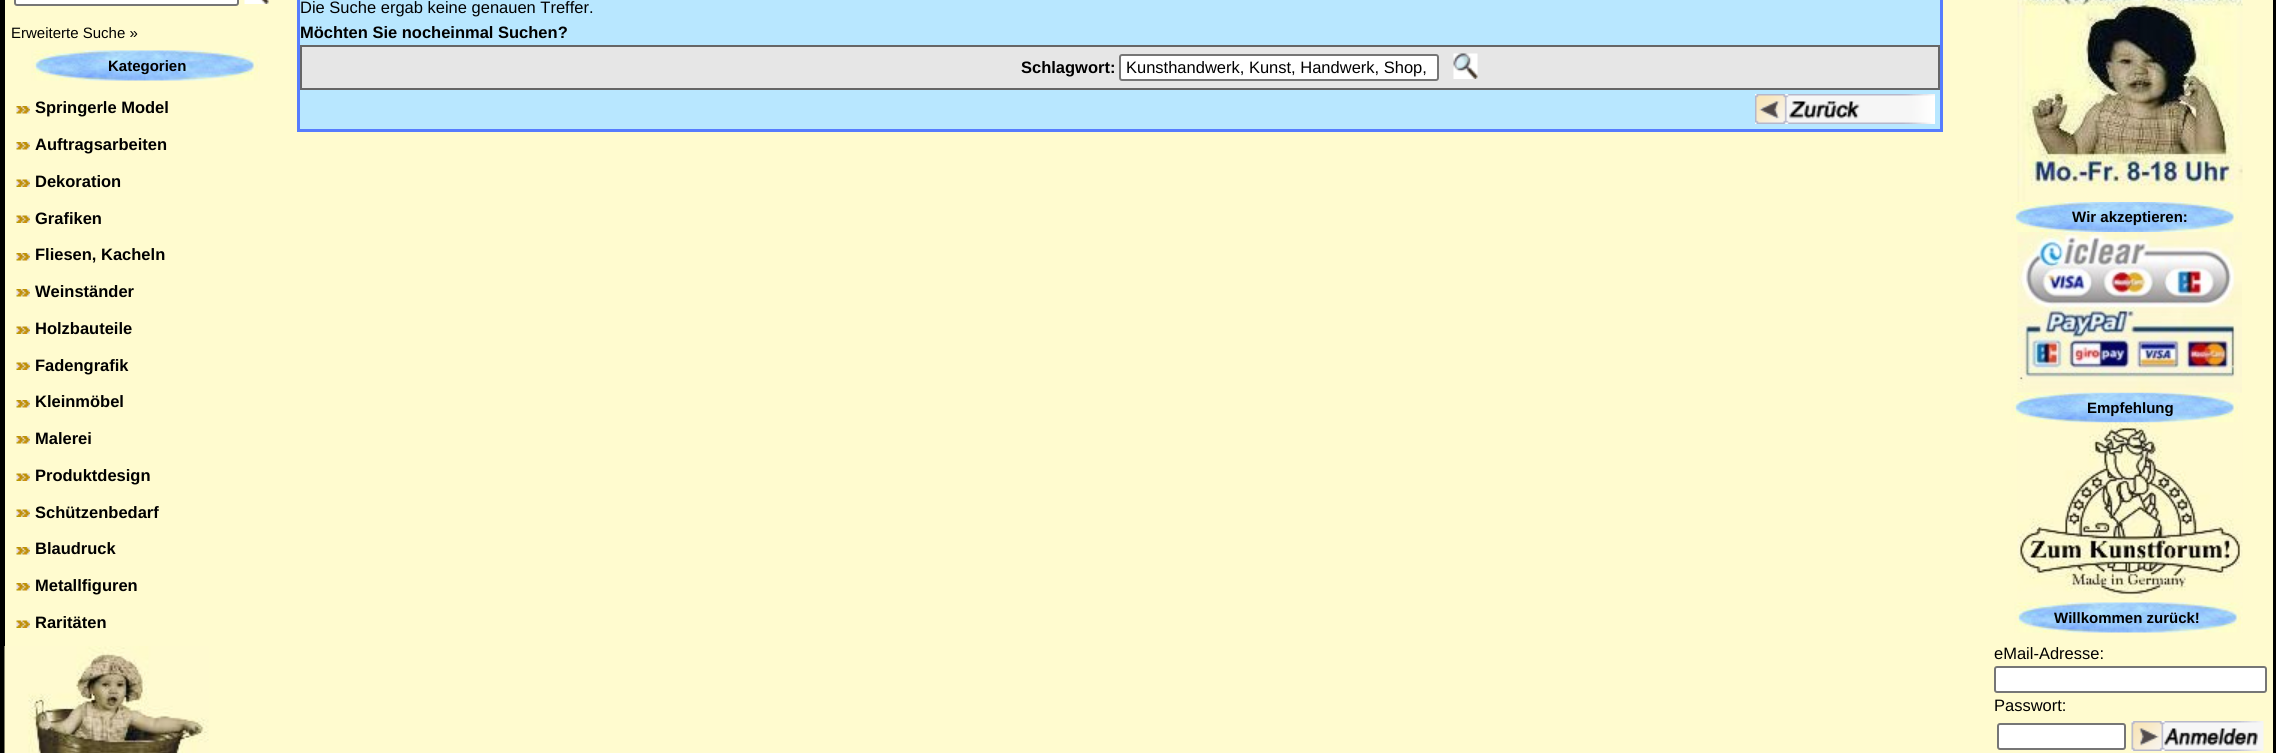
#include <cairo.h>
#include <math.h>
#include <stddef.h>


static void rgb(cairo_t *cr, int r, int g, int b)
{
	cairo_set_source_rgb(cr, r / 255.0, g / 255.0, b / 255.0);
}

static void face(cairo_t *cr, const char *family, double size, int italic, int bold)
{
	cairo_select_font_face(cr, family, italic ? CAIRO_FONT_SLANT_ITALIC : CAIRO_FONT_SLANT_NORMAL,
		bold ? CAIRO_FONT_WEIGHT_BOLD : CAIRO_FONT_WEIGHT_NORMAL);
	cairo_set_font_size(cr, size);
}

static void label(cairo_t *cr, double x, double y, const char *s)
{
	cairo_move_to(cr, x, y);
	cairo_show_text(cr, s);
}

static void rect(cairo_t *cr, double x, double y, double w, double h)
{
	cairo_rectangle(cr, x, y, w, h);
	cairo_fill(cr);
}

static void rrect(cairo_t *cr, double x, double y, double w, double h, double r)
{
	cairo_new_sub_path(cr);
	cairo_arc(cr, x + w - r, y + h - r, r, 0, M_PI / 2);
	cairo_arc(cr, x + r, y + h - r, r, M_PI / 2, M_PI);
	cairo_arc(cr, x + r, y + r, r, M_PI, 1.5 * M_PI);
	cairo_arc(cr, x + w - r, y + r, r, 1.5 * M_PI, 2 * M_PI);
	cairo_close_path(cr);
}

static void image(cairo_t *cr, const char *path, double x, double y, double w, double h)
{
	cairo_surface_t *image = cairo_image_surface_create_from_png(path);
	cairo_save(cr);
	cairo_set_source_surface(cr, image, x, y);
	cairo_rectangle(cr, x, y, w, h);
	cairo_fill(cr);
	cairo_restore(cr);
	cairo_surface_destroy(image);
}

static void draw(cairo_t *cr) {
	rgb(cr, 255, 251, 207);
	cairo_paint(cr);
	cairo_rectangle(cr, 2.5, -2.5, 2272, 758);
	rgb(cr, 0, 0, 0);
	cairo_set_line_width(cr, 5);
	cairo_stroke(cr);
	rgb(cr, 255, 255, 255);
	rrect(cr, 15, -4, 223, 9, 2);
	cairo_fill_preserve(cr);
	rgb(cr, 118, 118, 118);
	cairo_set_line_width(cr, 2);
	cairo_stroke(cr);
	image(cr, "image0.png", 244, 0, 25, 4);
	face(cr, "Liberation Sans", 15, 0, 0);
	rgb(cr, 0, 0, 0);
	label(cr, 11, 38, "Erweiterte Suche »");
	image(cr, "image1.png", 31, 50, 229, 31);
	face(cr, "Liberation Sans", 15, 0, 1);
	label(cr, 108, 71, "Kategorien");
	image(cr, "image2.png", 16, 106, 14, 8);
	face(cr, "Liberation Sans", 16.5, 0, 1);
	label(cr, 35, 113, "Springerle Model");
	image(cr, "image2.png", 16, 142, 14, 8);
	label(cr, 35, 150, "Auftragsarbeiten");
	image(cr, "image3.png", 16, 179, 14, 8);
	label(cr, 35, 187, "Dekoration");
	image(cr, "image3.png", 16, 215, 14, 8);
	label(cr, 35, 224, "Grafiken");
	image(cr, "image2.png", 16, 253, 14, 8);
	label(cr, 35, 260, "Fliesen, Kacheln");
	image(cr, "image2.png", 16, 289, 14, 8);
	label(cr, 35, 297, "Weinständer");
	image(cr, "image3.png", 16, 326, 14, 8);
	label(cr, 35, 334, "Holzbauteile");
	image(cr, "image3.png", 16, 362, 14, 8);
	label(cr, 35, 371, "Fadengrafik");
	image(cr, "image2.png", 16, 400, 14, 8);
	label(cr, 35, 407, "Kleinmöbel");
	image(cr, "image2.png", 16, 436, 14, 8);
	label(cr, 35, 444, "Malerei");
	image(cr, "image3.png", 16, 473, 14, 8);
	label(cr, 35, 481, "Produktdesign");
	image(cr, "image3.png", 16, 509, 14, 8);
	label(cr, 35, 518, "Schützenbedarf");
	image(cr, "image2.png", 16, 547, 14, 8);
	label(cr, 35, 554, "Blaudruck");
	image(cr, "image2.png", 16, 583, 14, 8);
	label(cr, 35, 591, "Metallfiguren");
	image(cr, "image3.png", 16, 620, 14, 8);
	label(cr, 35, 628, "Raritäten");
	image(cr, "image4.png", 4, 646, 205, 107);
	rgb(cr, 184, 231, 255);
	cairo_rectangle(cr, 298.5, -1.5, 1643, 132);
	cairo_fill_preserve(cr);
	rgb(cr, 86, 124, 254);
	cairo_set_line_width(cr, 3);
	cairo_stroke(cr);
	face(cr, "Liberation Sans", 16.5, 0, 0);
	rgb(cr, 0, 0, 0);
	label(cr, 300, 13, "Die Suche ergab keine genauen Treffer.");
	face(cr, "Liberation Sans", 16.5, 0, 1);
	label(cr, 300, 38, "Möchten Sie nocheinmal Suchen?");
	rgb(cr, 230, 230, 230);
	cairo_rectangle(cr, 301, 46, 1638, 43);
	cairo_fill_preserve(cr);
	rgb(cr, 102, 102, 102);
	cairo_set_line_width(cr, 2);
	cairo_stroke(cr);
	rgb(cr, 0, 0, 0);
	label(cr, 1021, 73, "Schlagwort:");
	rgb(cr, 255, 255, 255);
	rrect(cr, 1120, 55, 318, 25, 2);
	cairo_fill_preserve(cr);
	rgb(cr, 118, 118, 118);
	cairo_stroke(cr);
	face(cr, "Liberation Sans", 16.5, 0, 0);
	rgb(cr, 0, 0, 0);
	label(cr, 1126, 73, "Kunsthandwerk, Kunst, Handwerk, Shop,");
	image(cr, "image5.png", 1453, 53, 25, 26);
	image(cr, "image6.png", 1755, 94, 180, 30);
	rgb(cr, 255, 251, 207);
	rect(cr, 2272, 0, 1, 753);
	image(cr, "image7.png", 2017, 0, 226, 202);
	image(cr, "image8.png", 2011, 202, 229, 30);
	face(cr, "Liberation Sans", 15, 0, 1);
	rgb(cr, 0, 0, 0);
	label(cr, 2072, 222, "Wir akzeptieren:");
	image(cr, "image1.png", 2011, 392, 229, 31);
	image(cr, "image9.png", 2017, 232, 225, 161);
	label(cr, 2087, 413, "Empfehlung");
	image(cr, "image10.png", 2017, 422, 226, 178);
	image(cr, "image1.png", 2014, 602, 229, 31);
	label(cr, 2054, 623, "Willkommen zurück!");
	face(cr, "Liberation Sans", 16.5, 0, 0);
	label(cr, 1994, 659, "eMail-Adresse:");
	rgb(cr, 255, 255, 255);
	rrect(cr, 1995, 667, 271, 25, 2);
	cairo_fill_preserve(cr);
	rgb(cr, 118, 118, 118);
	cairo_stroke(cr);
	rgb(cr, 0, 0, 0);
	label(cr, 1994, 711, "Passwort:");
	rgb(cr, 255, 255, 255);
	rrect(cr, 1998, 724, 127, 25, 2);
	cairo_fill_preserve(cr);
	rgb(cr, 118, 118, 118);
	cairo_stroke(cr);
	image(cr, "image11.png", 2131, 721, 133, 30);
}

int main(void) {
	cairo_surface_t *surface = cairo_image_surface_create(CAIRO_FORMAT_RGB24, 2276, 753);
	cairo_t *cr = cairo_create(surface);
	cairo_font_options_t *options = cairo_font_options_create();
	cairo_font_options_set_hint_metrics(options, CAIRO_HINT_METRICS_OFF);
	cairo_font_options_set_hint_style(options, CAIRO_HINT_STYLE_NONE);
	cairo_set_font_options(cr, options);
	cairo_set_miter_limit(cr, 4);
	draw(cr);
	cairo_surface_write_to_png(surface, "render.png");
	cairo_font_options_destroy(options);
	cairo_destroy(cr);
	cairo_surface_destroy(surface);
	return 0;
}
